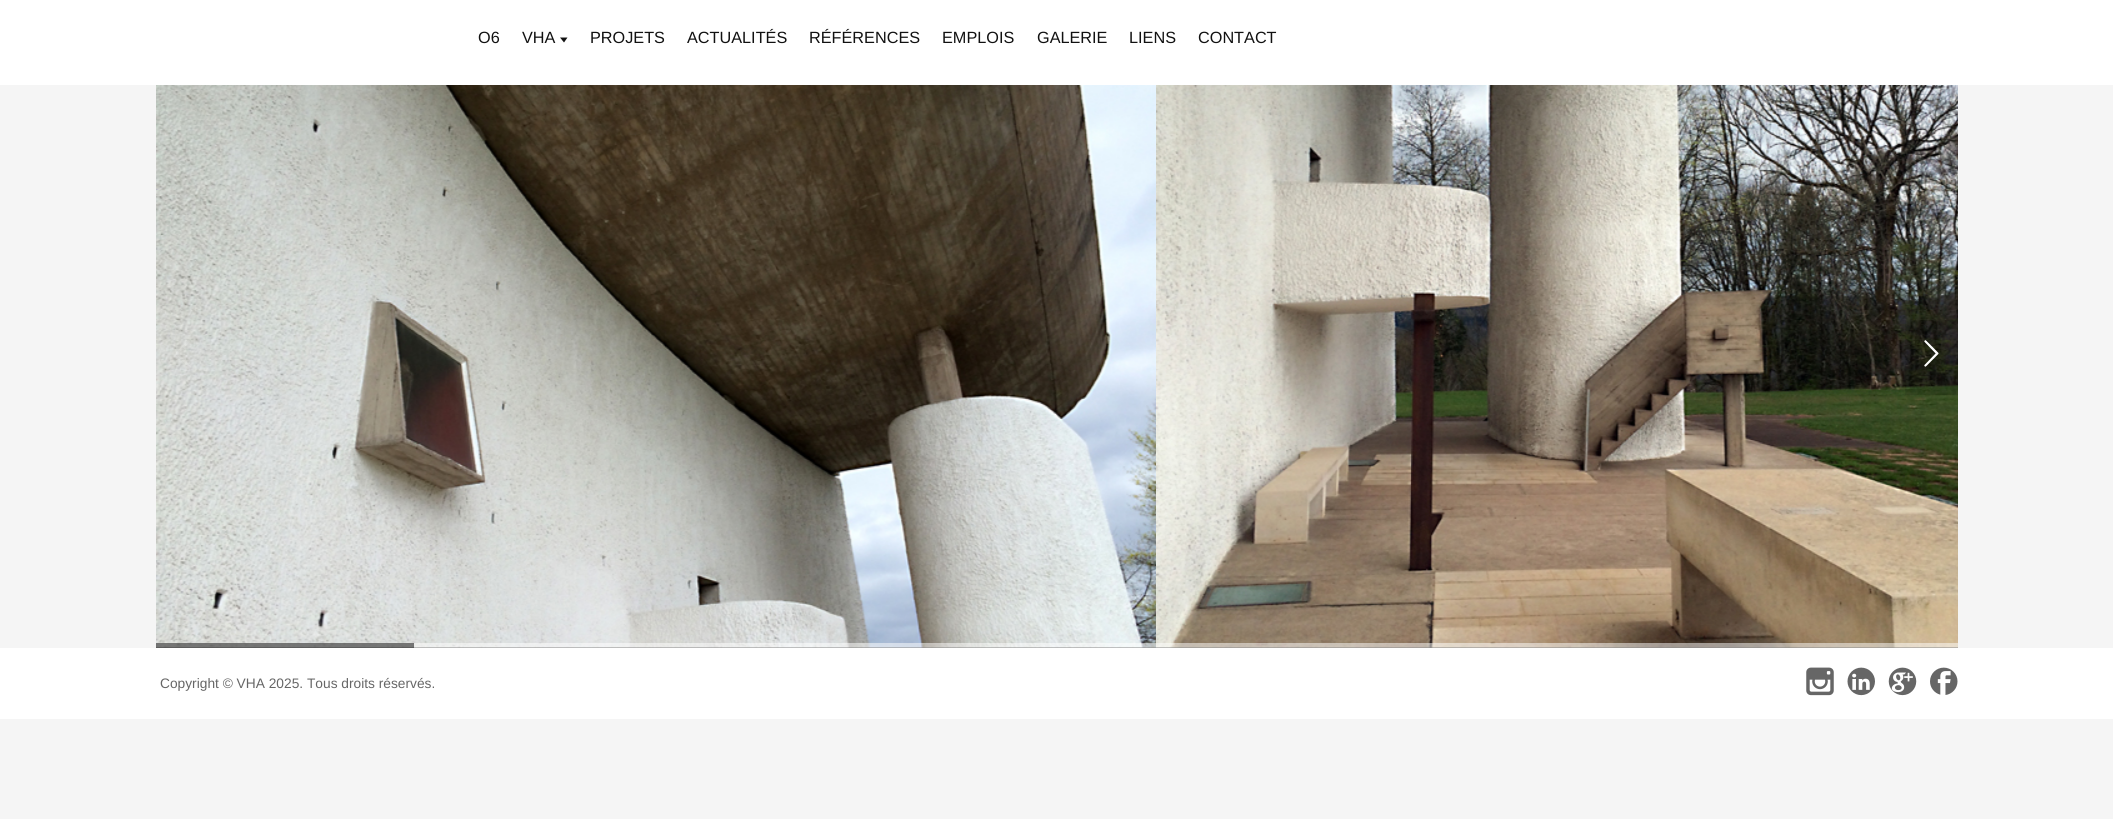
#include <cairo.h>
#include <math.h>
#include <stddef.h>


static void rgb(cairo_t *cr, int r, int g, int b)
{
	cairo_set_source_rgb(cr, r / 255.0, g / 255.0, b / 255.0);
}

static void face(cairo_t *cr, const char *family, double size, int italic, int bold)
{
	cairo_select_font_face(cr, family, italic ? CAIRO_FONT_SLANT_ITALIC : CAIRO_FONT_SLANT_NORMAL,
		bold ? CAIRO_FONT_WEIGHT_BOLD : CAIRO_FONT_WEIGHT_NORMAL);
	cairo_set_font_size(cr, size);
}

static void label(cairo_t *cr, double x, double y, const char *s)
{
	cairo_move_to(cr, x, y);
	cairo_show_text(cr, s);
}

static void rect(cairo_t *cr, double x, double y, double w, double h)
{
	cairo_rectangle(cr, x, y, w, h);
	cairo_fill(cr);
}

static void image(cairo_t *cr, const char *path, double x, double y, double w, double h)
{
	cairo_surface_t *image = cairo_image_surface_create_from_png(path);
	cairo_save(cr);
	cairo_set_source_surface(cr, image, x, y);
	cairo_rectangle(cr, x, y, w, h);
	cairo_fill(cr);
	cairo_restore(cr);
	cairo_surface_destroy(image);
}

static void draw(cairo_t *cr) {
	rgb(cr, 245, 245, 245);
	cairo_paint(cr);
	rgb(cr, 255, 255, 255);
	rect(cr, 0, 0, 2113, 85);
	face(cr, "Liberation Sans", 16.25, 0, 0);
	rgb(cr, 17, 17, 17);
	label(cr, 478, 43, "O6");
	label(cr, 522, 43, "VHA");
	cairo_new_path(cr);
	cairo_move_to(cr, 560, 37.5);
	cairo_line_to(cr, 567.5, 37.5);
	cairo_line_to(cr, 564, 42.5);
	cairo_close_path(cr);
	cairo_fill(cr);
	label(cr, 590, 43, "PROJETS");
	label(cr, 687, 43, "ACTUALITÉS");
	label(cr, 809, 43, "RÉFÉRENCES");
	label(cr, 942, 43, "EMPLOIS");
	label(cr, 1037, 43, "GALERIE");
	label(cr, 1129, 43, "LIENS");
	label(cr, 1198, 43, "CONTACT");
	rect(cr, 156, 647, 1802, 1);
	image(cr, "image0.png", 156, 85, 1000, 563);
	image(cr, "image1.png", 1156, 85, 802, 563);
	image(cr, "image2.png", 176, 340, 14, 26);
	cairo_set_source_rgba(cr, 0, 0, 0, 0.1);
	rect(cr, 1905, 320, 53, 75);
	image(cr, "image3.png", 1924, 340, 15, 27);
	cairo_set_source_rgba(cr, 1, 1, 1, 0.5);
	rect(cr, 156, 643, 1802, 5);
	cairo_set_source_rgba(cr, 0.067, 0.067, 0.067, 0.55);
	rect(cr, 156, 643, 258, 5);
	rgb(cr, 255, 255, 255);
	rect(cr, 0, 648, 2113, 71);
	face(cr, "Liberation Sans", 13.75, 0, 0);
	rgb(cr, 102, 102, 102);
	label(cr, 160, 688, "Copyright © VHA 2025. Tous droits réservés.");
	image(cr, "image4.png", 1806, 667, 28, 29);
	image(cr, "image5.png", 1847, 667, 28, 29);
	image(cr, "image6.png", 1888, 667, 29, 29);
	image(cr, "image7.png", 1930, 667, 28, 28);
}

int main(void) {
	cairo_surface_t *surface = cairo_image_surface_create(CAIRO_FORMAT_RGB24, 2113, 819);
	cairo_t *cr = cairo_create(surface);
	cairo_font_options_t *options = cairo_font_options_create();
	cairo_font_options_set_hint_metrics(options, CAIRO_HINT_METRICS_OFF);
	cairo_font_options_set_hint_style(options, CAIRO_HINT_STYLE_NONE);
	cairo_set_font_options(cr, options);
	cairo_set_miter_limit(cr, 4);
	draw(cr);
	cairo_surface_write_to_png(surface, "render.png");
	cairo_font_options_destroy(options);
	cairo_destroy(cr);
	cairo_surface_destroy(surface);
	return 0;
}
